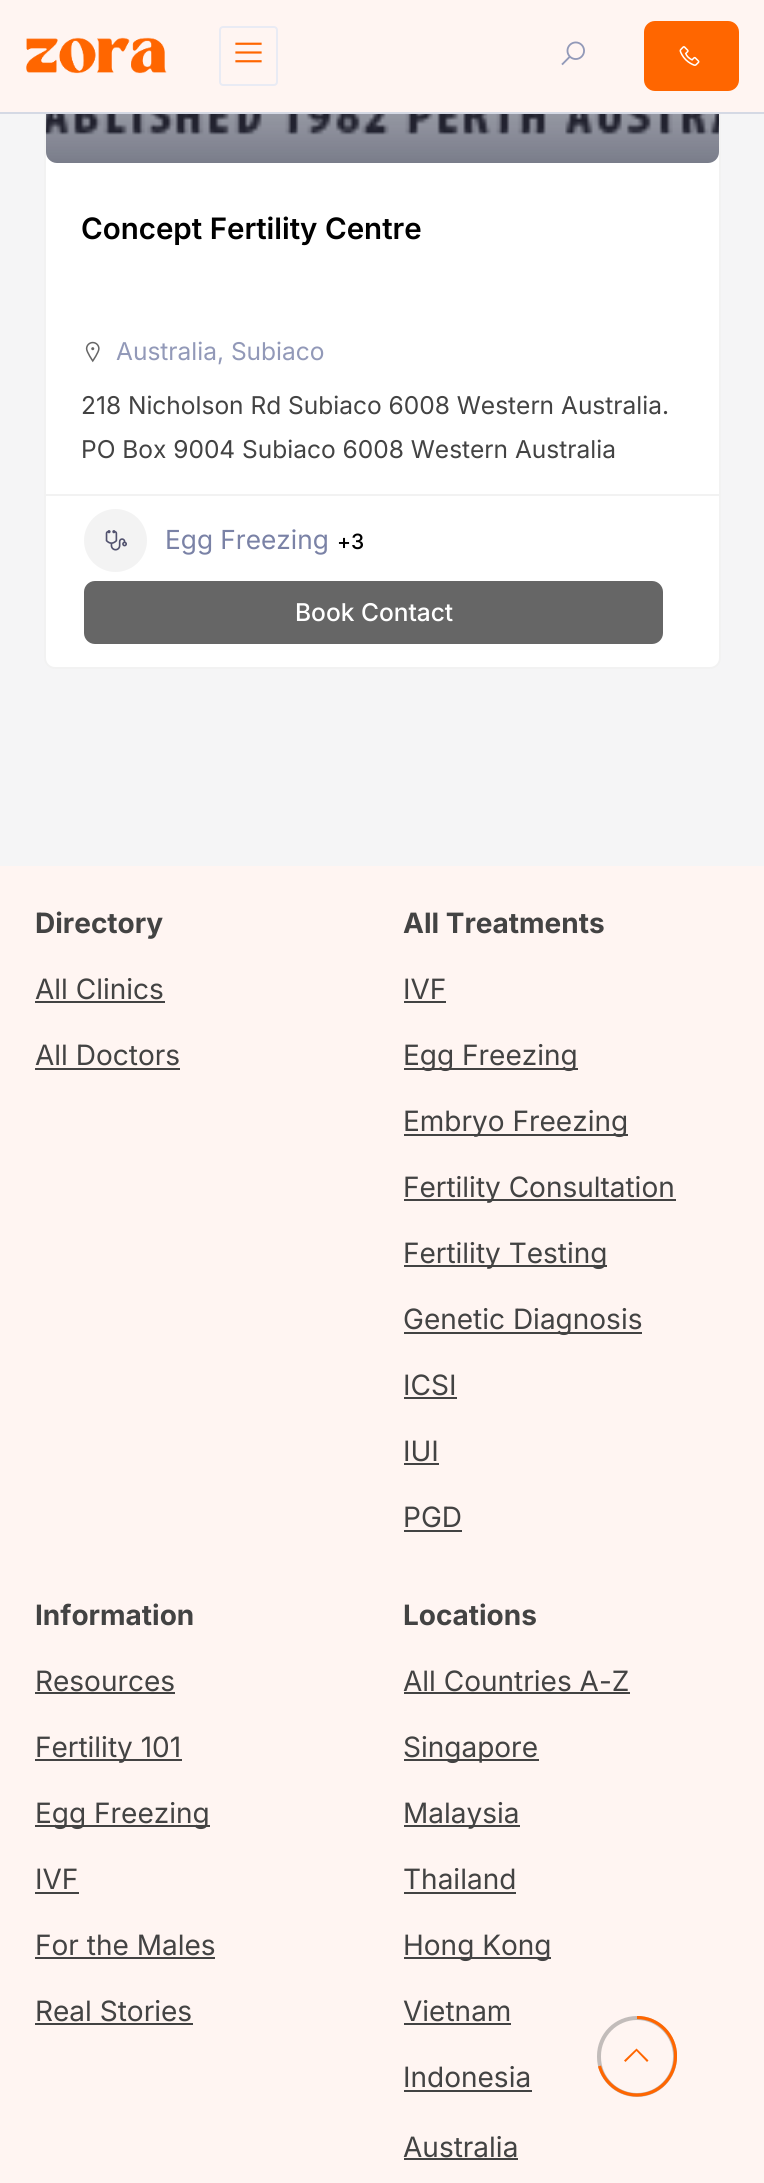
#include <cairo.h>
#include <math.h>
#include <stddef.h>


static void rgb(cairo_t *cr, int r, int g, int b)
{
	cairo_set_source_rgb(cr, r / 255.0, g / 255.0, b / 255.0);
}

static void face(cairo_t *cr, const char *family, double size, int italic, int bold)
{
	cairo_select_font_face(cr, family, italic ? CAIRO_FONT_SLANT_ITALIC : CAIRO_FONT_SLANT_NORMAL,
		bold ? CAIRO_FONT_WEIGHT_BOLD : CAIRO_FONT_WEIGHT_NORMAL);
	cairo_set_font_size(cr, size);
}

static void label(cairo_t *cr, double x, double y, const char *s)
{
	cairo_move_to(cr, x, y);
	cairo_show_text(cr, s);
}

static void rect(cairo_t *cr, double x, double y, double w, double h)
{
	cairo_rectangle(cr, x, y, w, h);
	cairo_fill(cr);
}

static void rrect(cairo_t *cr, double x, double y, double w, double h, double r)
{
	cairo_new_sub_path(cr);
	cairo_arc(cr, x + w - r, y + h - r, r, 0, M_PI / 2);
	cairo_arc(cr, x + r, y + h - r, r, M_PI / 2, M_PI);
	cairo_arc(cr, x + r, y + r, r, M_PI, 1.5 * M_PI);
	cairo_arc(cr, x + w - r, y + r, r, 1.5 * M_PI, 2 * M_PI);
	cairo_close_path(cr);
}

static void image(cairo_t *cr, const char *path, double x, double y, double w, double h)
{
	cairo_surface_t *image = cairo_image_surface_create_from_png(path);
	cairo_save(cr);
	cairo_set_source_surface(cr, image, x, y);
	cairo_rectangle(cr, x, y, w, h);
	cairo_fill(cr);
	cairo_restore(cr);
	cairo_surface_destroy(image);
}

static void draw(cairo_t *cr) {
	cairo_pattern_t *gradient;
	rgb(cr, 245, 245, 246);
	cairo_paint(cr);
	rgb(cr, 255, 255, 255);
	rrect(cr, 45, -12, 675, 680, 10);
	cairo_fill_preserve(cr);
	rgb(cr, 242, 242, 242);
	cairo_stroke(cr);
	rgb(cr, 246, 247, 248);
	rrect(cr, 46, -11, 673, 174, 11);
	cairo_fill(cr);
	image(cr, "image4.png", 45, 114, 674, 21);
	gradient = cairo_pattern_create_linear(382, 163, 382, -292);
	cairo_pattern_add_color_stop_rgba(gradient, 0, 0.153, 0.169, 0.255, 0.6);
	cairo_pattern_add_color_stop_rgba(gradient, 0.5, 0.153, 0.169, 0.255, 0);
	cairo_set_source(cr, gradient);
	cairo_pattern_destroy(gradient);
	rrect(cr, 46, -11, 673, 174, 11);
	cairo_fill(cr);
	rgb(cr, 213, 217, 228);
	rect(cr, 0, 112, 764, 2);
	rgb(cr, 255, 245, 242);
	rect(cr, 0, 0, 764, 112);
	image(cr, "image0.png", 26, 37, 141, 37);
	rrect(cr, 220, 27, 57, 58, 3);
	rgb(cr, 233, 235, 244);
	cairo_stroke(cr);
	image(cr, "image1.png", 235, 42, 27, 21);
	image(cr, "image2.png", 561, 41, 24, 25);
	rgb(cr, 255, 102, 0);
	rrect(cr, 644, 21, 95, 70, 11);
	cairo_fill(cr);
	image(cr, "image3.png", 679, 46, 21, 20);
	face(cr, "Inter SemiBold", 29.5, 0, 0);
	rgb(cr, 0, 0, 0);
	label(cr, 81, 239, "Concept Fertility Centre");
	image(cr, "image5.png", 85, 341, 15, 22);
	face(cr, "Inter", 24.5, 0, 0);
	rgb(cr, 146, 153, 184);
	label(cr, 116, 360, "Australia, Subiaco");
	rgb(cr, 67, 67, 67);
	label(cr, 81, 414, "218 Nicholson Rd Subiaco 6008 Western Australia.");
	label(cr, 81, 458, "PO Box 9004 Subiaco 6008 Western Australia");
	rgb(cr, 242, 242, 242);
	rect(cr, 46, 494, 673, 2);
	rgb(cr, 243, 243, 243);
	cairo_new_path(cr);
	cairo_arc(cr, 115.5, 540.5, 31.5, 0, 2 * M_PI);
	cairo_fill(cr);
	image(cr, "image6.png", 105, 530, 22, 21);
	face(cr, "Inter", 26.25, 0, 0);
	rgb(cr, 122, 130, 166);
	label(cr, 165, 549, "Egg Freezing");
	face(cr, "Inter Medium", 21, 0, 0);
	rgb(cr, 0, 0, 0);
	label(cr, 337, 549, "+3");
	rgb(cr, 102, 102, 102);
	rrect(cr, 85, 582, 577, 61, 10);
	cairo_fill_preserve(cr);
	cairo_stroke(cr);
	face(cr, "Inter Medium", 24.5, 0, 0);
	rgb(cr, 255, 255, 255);
	label(cr, 295, 621, "Book Contact");
	rgb(cr, 255, 245, 242);
	rect(cr, 0, 866, 764, 1317);
	face(cr, "Inter", 28, 0, 1);
	rgb(cr, 67, 67, 67);
	label(cr, 35, 933, "Directory");
	face(cr, "Inter", 28, 0, 0);
	label(cr, 35, 999, "All Clinics");
	rect(cr, 35, 1001, 130, 2);
	label(cr, 35, 1065, "All Doctors");
	rect(cr, 35, 1068, 145, 2);
	face(cr, "Inter", 28, 0, 1);
	label(cr, 403, 933, "All Treatments");
	face(cr, "Inter", 28, 0, 0);
	label(cr, 403, 999, "IVF");
	rect(cr, 404, 1001, 42, 2);
	rect(cr, 404, 1068, 174, 2);
	label(cr, 403, 1065, "Egg Freezing");
	rect(cr, 404, 1134, 224, 2);
	label(cr, 403, 1131, "Embryo Freezing");
	rect(cr, 404, 1199, 272, 2);
	label(cr, 403, 1197, "Fertility Consultation");
	rect(cr, 404, 1265, 203, 2);
	label(cr, 403, 1263, "Fertility Testing");
	rect(cr, 404, 1332, 238, 2);
	label(cr, 403, 1329, "Genetic Diagnosis");
	label(cr, 403, 1395, "ICSI");
	rect(cr, 404, 1397, 53, 2);
	label(cr, 403, 1461, "IUI");
	rect(cr, 404, 1463, 35, 2);
	label(cr, 403, 1527, "PGD");
	rect(cr, 404, 1530, 58, 2);
	face(cr, "Inter", 28, 0, 1);
	label(cr, 35, 1625, "Information");
	face(cr, "Inter", 28, 0, 0);
	label(cr, 35, 1691, "Resources");
	rect(cr, 35, 1692, 140, 2);
	rect(cr, 35, 1759, 147, 2);
	label(cr, 35, 1757, "Fertility 101");
	rect(cr, 35, 1825, 175, 2);
	label(cr, 35, 1823, "Egg Freezing");
	label(cr, 35, 1889, "IVF");
	rect(cr, 35, 1892, 44, 2);
	label(cr, 35, 1955, "For the Males");
	rect(cr, 35, 1957, 180, 2);
	label(cr, 35, 2021, "Real Stories");
	rect(cr, 35, 2023, 158, 2);
	face(cr, "Inter", 28, 0, 1);
	label(cr, 403, 1625, "Locations");
	face(cr, "Inter", 28, 0, 0);
	label(cr, 403, 1691, "All Countries A-Z");
	rect(cr, 404, 1692, 226, 2);
	rect(cr, 404, 1759, 135, 2);
	label(cr, 403, 1757, "Singapore");
	rect(cr, 404, 1825, 116, 2);
	label(cr, 403, 1823, "Malaysia");
	label(cr, 403, 1889, "Thailand");
	rect(cr, 404, 1892, 112, 2);
	rect(cr, 404, 1957, 147, 2);
	label(cr, 403, 1955, "Hong Kong");
	label(cr, 403, 2021, "Vietnam");
	rect(cr, 404, 2023, 107, 2);
	label(cr, 403, 2087, "Indonesia");
	rect(cr, 404, 2090, 128, 2);
	label(cr, 403, 2157, "Australia");
	rect(cr, 404, 2158, 114, 2);
	rrect(cr, 599, 2018, 76, 77, 38);
	rgb(cr, 194, 188, 186);
	cairo_set_line_width(cr, 4);
	cairo_stroke(cr);
	cairo_save(cr);
	cairo_rectangle(cr, 597, 2016, 80, 81);
	cairo_clip(cr);
	cairo_new_path(cr);
	cairo_move_to(cr, 637, 2017.5);
	cairo_curve_to(cr, 658.5, 2017.5, 675.5, 2035, 675.5, 2056);
	cairo_curve_to(cr, 675.5, 2077.5, 658.5, 2095, 637, 2095);
	cairo_curve_to(cr, 619, 2095, 604, 2082.5, 599.5, 2066);
	rgb(cr, 255, 102, 0);
	cairo_set_line_width(cr, 3.2);
	cairo_stroke(cr);
	cairo_restore(cr);
	rgb(cr, 255, 102, 0);
	cairo_new_path(cr);
	cairo_move_to(cr, 647, 2062);
	cairo_line_to(cr, 636.5, 2051);
	cairo_line_to(cr, 625.5, 2062);
	cairo_line_to(cr, 624, 2060.5);
	cairo_line_to(cr, 636.5, 2048.5);
	cairo_line_to(cr, 648.5, 2060.5);
	cairo_close_path(cr);
	cairo_fill(cr);
}

int main(void) {
	cairo_surface_t *surface = cairo_image_surface_create(CAIRO_FORMAT_RGB24, 764, 2183);
	cairo_t *cr = cairo_create(surface);
	cairo_font_options_t *options = cairo_font_options_create();
	cairo_font_options_set_hint_metrics(options, CAIRO_HINT_METRICS_OFF);
	cairo_font_options_set_hint_style(options, CAIRO_HINT_STYLE_NONE);
	cairo_set_font_options(cr, options);
	cairo_set_miter_limit(cr, 4);
	draw(cr);
	cairo_surface_write_to_png(surface, "render.png");
	cairo_font_options_destroy(options);
	cairo_destroy(cr);
	cairo_surface_destroy(surface);
	return 0;
}
